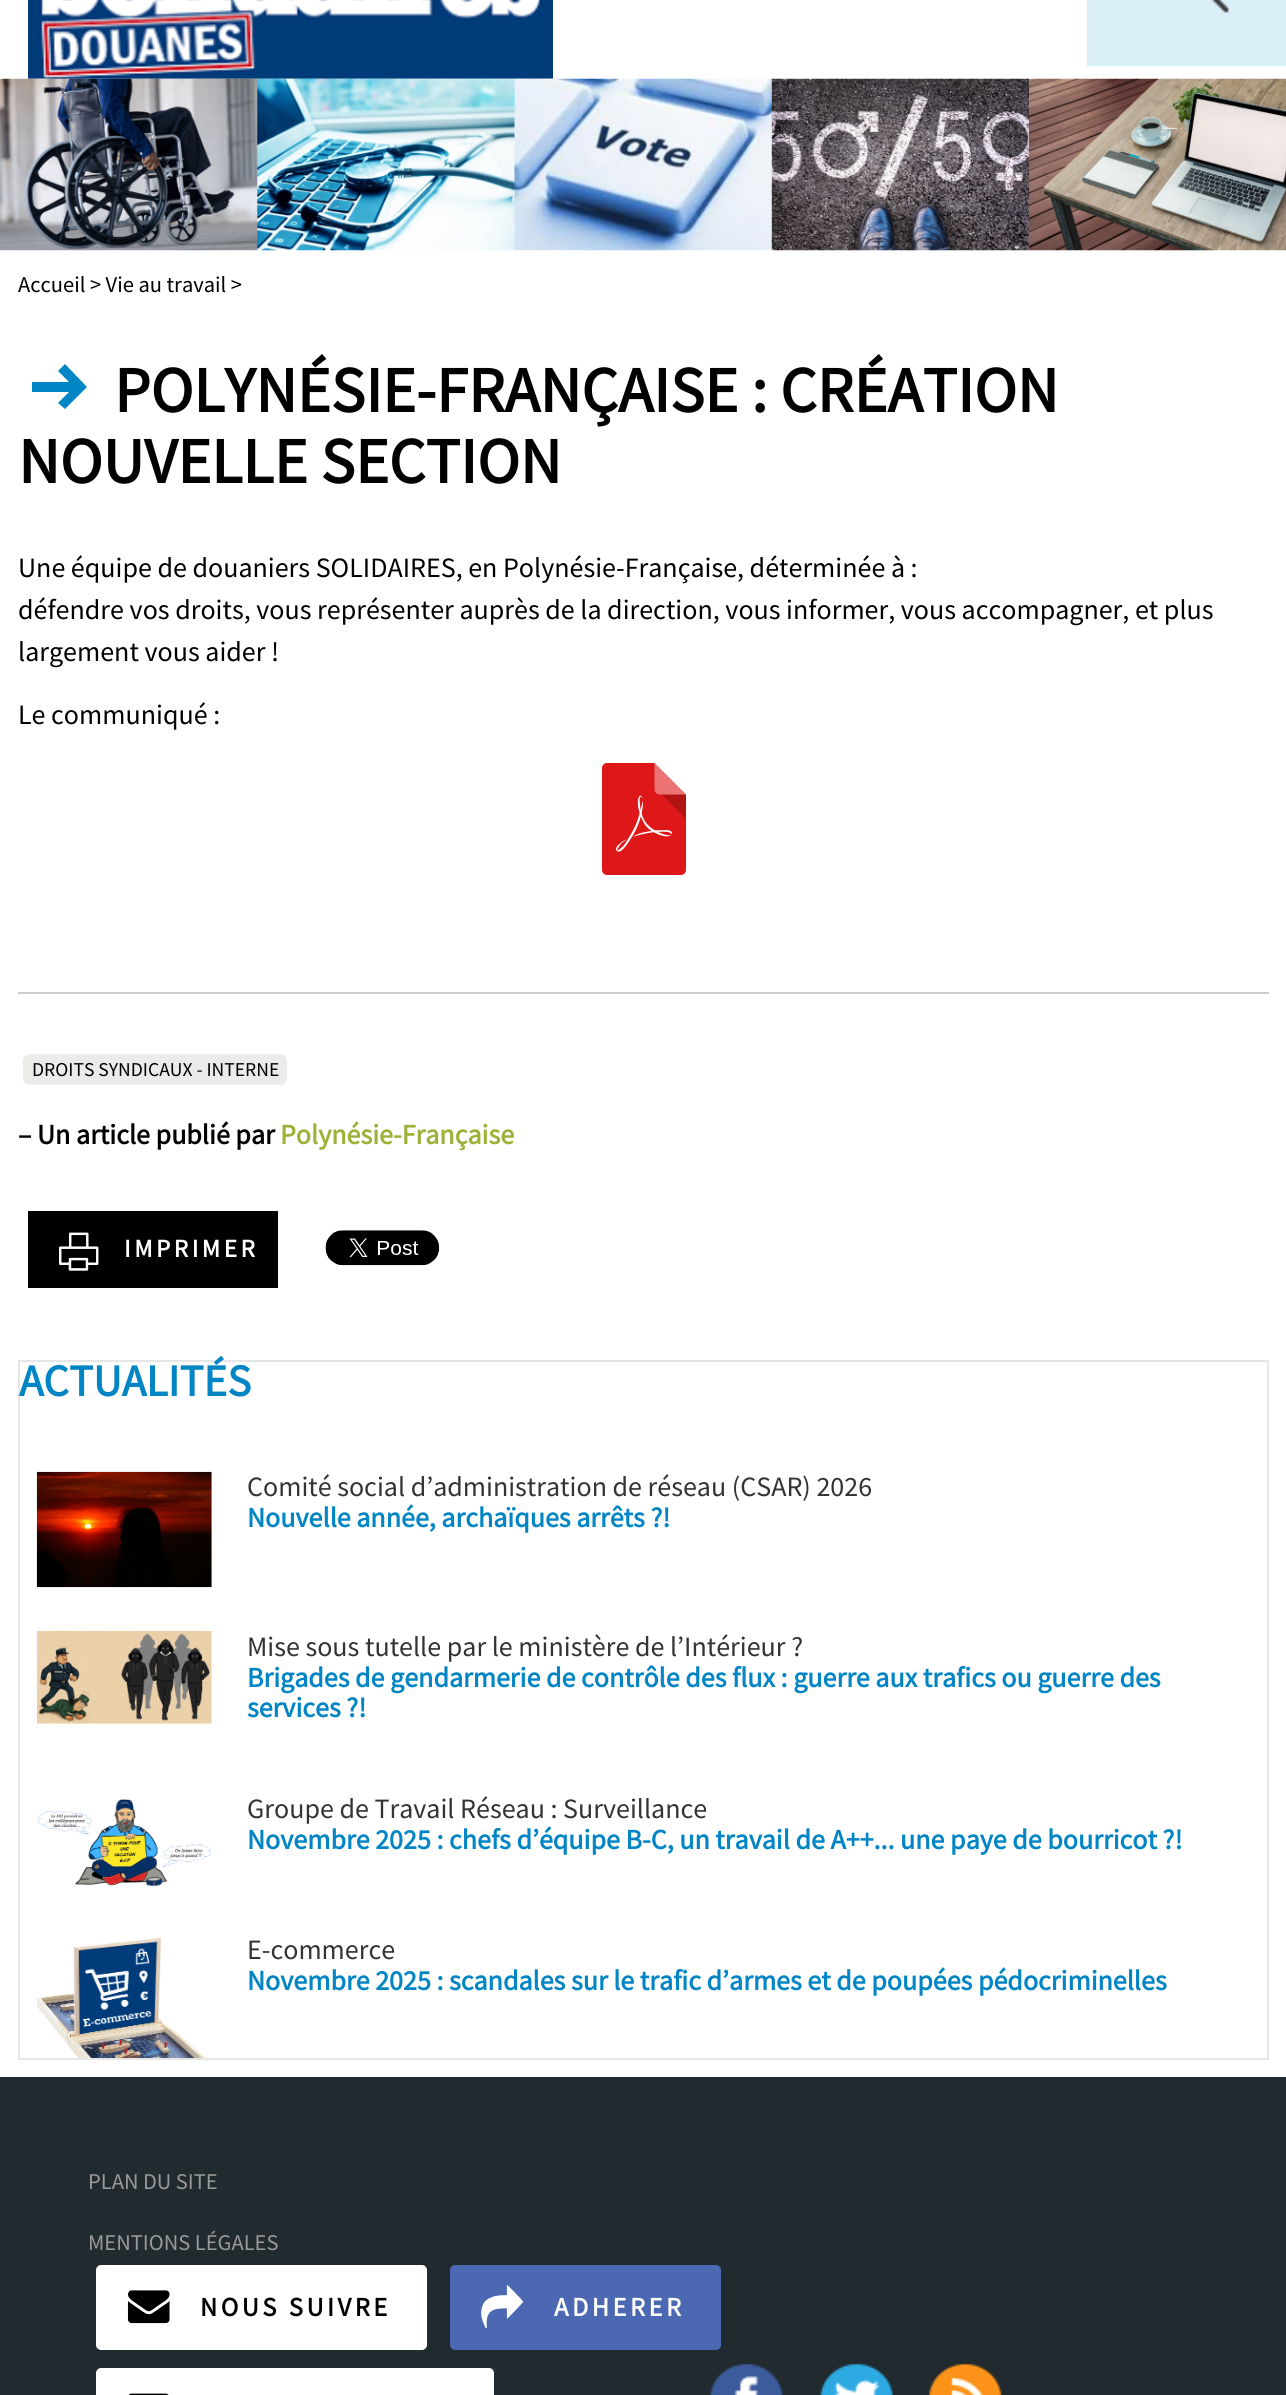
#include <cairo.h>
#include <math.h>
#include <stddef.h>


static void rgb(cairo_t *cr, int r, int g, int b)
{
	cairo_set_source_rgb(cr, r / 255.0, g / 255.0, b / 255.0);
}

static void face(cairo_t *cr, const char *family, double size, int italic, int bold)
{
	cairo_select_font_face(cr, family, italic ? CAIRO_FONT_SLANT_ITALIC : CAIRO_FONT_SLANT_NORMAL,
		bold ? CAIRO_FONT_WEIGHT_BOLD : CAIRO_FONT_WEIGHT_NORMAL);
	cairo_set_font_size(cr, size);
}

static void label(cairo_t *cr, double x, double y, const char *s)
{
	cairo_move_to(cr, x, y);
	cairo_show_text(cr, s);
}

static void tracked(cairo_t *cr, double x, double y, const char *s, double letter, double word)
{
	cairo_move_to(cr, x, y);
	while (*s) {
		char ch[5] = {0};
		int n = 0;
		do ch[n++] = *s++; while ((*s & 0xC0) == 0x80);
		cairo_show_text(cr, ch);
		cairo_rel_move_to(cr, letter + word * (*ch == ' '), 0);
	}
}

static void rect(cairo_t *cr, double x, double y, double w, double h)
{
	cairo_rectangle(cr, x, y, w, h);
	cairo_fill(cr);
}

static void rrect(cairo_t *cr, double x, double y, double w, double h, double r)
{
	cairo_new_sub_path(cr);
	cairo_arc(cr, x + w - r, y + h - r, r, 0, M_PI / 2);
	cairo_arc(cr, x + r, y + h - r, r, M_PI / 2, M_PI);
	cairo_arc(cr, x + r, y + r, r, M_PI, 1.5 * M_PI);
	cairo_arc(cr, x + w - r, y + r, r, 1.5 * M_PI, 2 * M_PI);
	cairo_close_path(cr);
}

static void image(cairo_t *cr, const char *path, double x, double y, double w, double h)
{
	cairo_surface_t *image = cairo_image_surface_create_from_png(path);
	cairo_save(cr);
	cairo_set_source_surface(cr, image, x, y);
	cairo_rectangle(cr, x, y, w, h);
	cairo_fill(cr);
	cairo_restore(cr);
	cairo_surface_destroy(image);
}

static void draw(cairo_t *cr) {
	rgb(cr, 255, 255, 255);
	cairo_paint(cr);
	image(cr, "image0.png", 28, 0, 525, 79);
	image(cr, "image1.png", 1086, 0, 200, 67);
	image(cr, "image2.png", 0, 78, 1286, 173);
	face(cr, "Source Sans Pro", 22.5, 0, 0);
	rgb(cr, 0, 0, 0);
	label(cr, 18, 292, "Accueil > Vie au travail >");
	rgb(cr, 1, 133, 196);
	cairo_new_path(cr);
	cairo_move_to(cr, 65, 364);
	cairo_line_to(cr, 58, 371);
	cairo_line_to(cr, 69, 382);
	cairo_line_to(cr, 32, 382);
	cairo_line_to(cr, 32, 392);
	cairo_line_to(cr, 69, 392);
	cairo_line_to(cr, 58, 403);
	cairo_line_to(cr, 65, 409);
	cairo_line_to(cr, 87, 387);
	cairo_close_path(cr);
	cairo_fill(cr);
	face(cr, "Source Sans Pro", 64.4, 0, 1);
	rgb(cr, 0, 0, 0);
	label(cr, 114, 412, "POLYNÉSIE-FRANÇAISE : CRÉATION");
	label(cr, 18, 483, "NOUVELLE SECTION");
	face(cr, "Source Sans Pro", 28, 0, 0);
	label(cr, 18, 577, "Une équipe de douaniers SOLIDAIRES, en Polynésie-Française, déterminée à :");
	label(cr, 18, 619, "défendre vos droits, vous représenter auprès de la direction, vous informer, vous accompagner, et plus");
	label(cr, 18, 661, "largement vous aider !");
	label(cr, 18, 724, "Le communiqué :");
	image(cr, "image3.png", 602, 763, 84, 112);
	rgb(cr, 204, 204, 204);
	rect(cr, 18, 992, 1251, 2);
	rgb(cr, 235, 235, 233);
	rrect(cr, 23, 1054, 264, 31, 7);
	cairo_fill(cr);
	face(cr, "Source Sans Pro", 19.6, 0, 0);
	rgb(cr, 0, 0, 0);
	label(cr, 32, 1076, "DROITS SYNDICAUX - INTERNE");
	face(cr, "Source Sans Pro", 28, 0, 1);
	label(cr, 18, 1144, "– Un article publié par");
	rgb(cr, 156, 177, 56);
	label(cr, 280, 1144, "Polynésie-Française");
	rgb(cr, 0, 0, 0);
	rect(cr, 28, 1211, 250, 77);
	image(cr, "image4.png", 59, 1232, 40, 39);
	face(cr, "Source Sans Pro", 25.25, 0, 1);
	rgb(cr, 255, 255, 255);
	tracked(cr, 124, 1257, "IMPRIMER", 3.5, 0);
	image(cr, "image5.png", 325, 1230, 115, 36);
	cairo_rectangle(cr, 19, 1361, 1249, 698);
	rgb(cr, 230, 230, 228);
	cairo_stroke(cr);
	face(cr, "Source Sans Pro", 44.75, 0, 1);
	rgb(cr, 1, 133, 196);
	label(cr, 19, 1396, "ACTUALITÉS");
	image(cr, "image6.png", 36, 1471, 176, 117);
	face(cr, "Source Sans Pro", 28, 0, 0);
	rgb(cr, 51, 51, 51);
	label(cr, 247, 1496, "Comité social d’administration de réseau (CSAR) 2026");
	face(cr, "Source Sans Pro", 28, 0, 1);
	rgb(cr, 1, 133, 196);
	label(cr, 247, 1527, "Nouvelle année, archaïques arrêts ?!");
	image(cr, "image7.png", 36, 1631, 176, 93);
	face(cr, "Source Sans Pro", 28, 0, 0);
	rgb(cr, 51, 51, 51);
	label(cr, 247, 1656, "Mise sous tutelle par le ministère de l’Intérieur ?");
	face(cr, "Source Sans Pro", 28, 0, 1);
	rgb(cr, 1, 133, 196);
	label(cr, 247, 1687, "Brigades de gendarmerie de contrôle des flux : guerre aux trafics ou guerre des");
	label(cr, 247, 1717, "services ?!");
	image(cr, "image8.png", 37, 1799, 175, 88);
	face(cr, "Source Sans Pro", 28, 0, 0);
	rgb(cr, 51, 51, 51);
	label(cr, 247, 1818, "Groupe de Travail Réseau : Surveillance");
	face(cr, "Source Sans Pro", 28, 0, 1);
	rgb(cr, 1, 133, 196);
	label(cr, 247, 1849, "Novembre 2025 : chefs d’équipe B-C, un travail de A++... une paye de bourricot ?!");
	image(cr, "image9.png", 37, 1937, 170, 121);
	face(cr, "Source Sans Pro", 28, 0, 0);
	rgb(cr, 51, 51, 51);
	label(cr, 247, 1959, "E-commerce");
	face(cr, "Source Sans Pro", 28, 0, 1);
	rgb(cr, 1, 133, 196);
	label(cr, 247, 1990, "Novembre 2025 : scandales sur le trafic d’armes et de poupées pédocriminelles");
	rgb(cr, 33, 42, 46);
	rect(cr, 0, 2077, 1286, 318);
	face(cr, "Source Sans Pro", 22.5, 0, 0);
	rgb(cr, 153, 153, 153);
	label(cr, 88, 2189, "PLAN DU SITE");
	label(cr, 88, 2250, "MENTIONS LÉGALES");
	rgb(cr, 255, 255, 255);
	rrect(cr, 97, 2266, 329, 83, 4);
	cairo_fill_preserve(cr);
	cairo_stroke(cr);
	image(cr, "image10.png", 127, 2290, 43, 34);
	face(cr, "Source Sans Pro", 26.5, 0, 1);
	rgb(cr, 0, 0, 0);
	tracked(cr, 200, 2316, "NOUS SUIVRE", 3.5, 0);
	rgb(cr, 76, 104, 179);
	rrect(cr, 451, 2266, 269, 83, 4);
	cairo_fill_preserve(cr);
	cairo_stroke(cr);
	image(cr, "image11.png", 481, 2284, 43, 44);
	rgb(cr, 255, 255, 255);
	tracked(cr, 554, 2316, "ADHERER", 3.5, 0);
	rrect(cr, 97, 2369, 396, 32, 4);
	cairo_fill_preserve(cr);
	cairo_stroke(cr);
	image(cr, "image12.png", 129, 2393, 40, 2);
	image(cr, "image13.png", 710, 2363, 73, 32);
	image(cr, "image14.png", 820, 2363, 73, 32);
	image(cr, "image15.png", 928, 2363, 74, 32);
}

int main(void) {
	cairo_surface_t *surface = cairo_image_surface_create(CAIRO_FORMAT_RGB24, 1286, 2395);
	cairo_t *cr = cairo_create(surface);
	cairo_font_options_t *options = cairo_font_options_create();
	cairo_font_options_set_hint_metrics(options, CAIRO_HINT_METRICS_OFF);
	cairo_font_options_set_hint_style(options, CAIRO_HINT_STYLE_NONE);
	cairo_set_font_options(cr, options);
	cairo_set_miter_limit(cr, 4);
	draw(cr);
	cairo_surface_write_to_png(surface, "render.png");
	cairo_font_options_destroy(options);
	cairo_destroy(cr);
	cairo_surface_destroy(surface);
	return 0;
}
